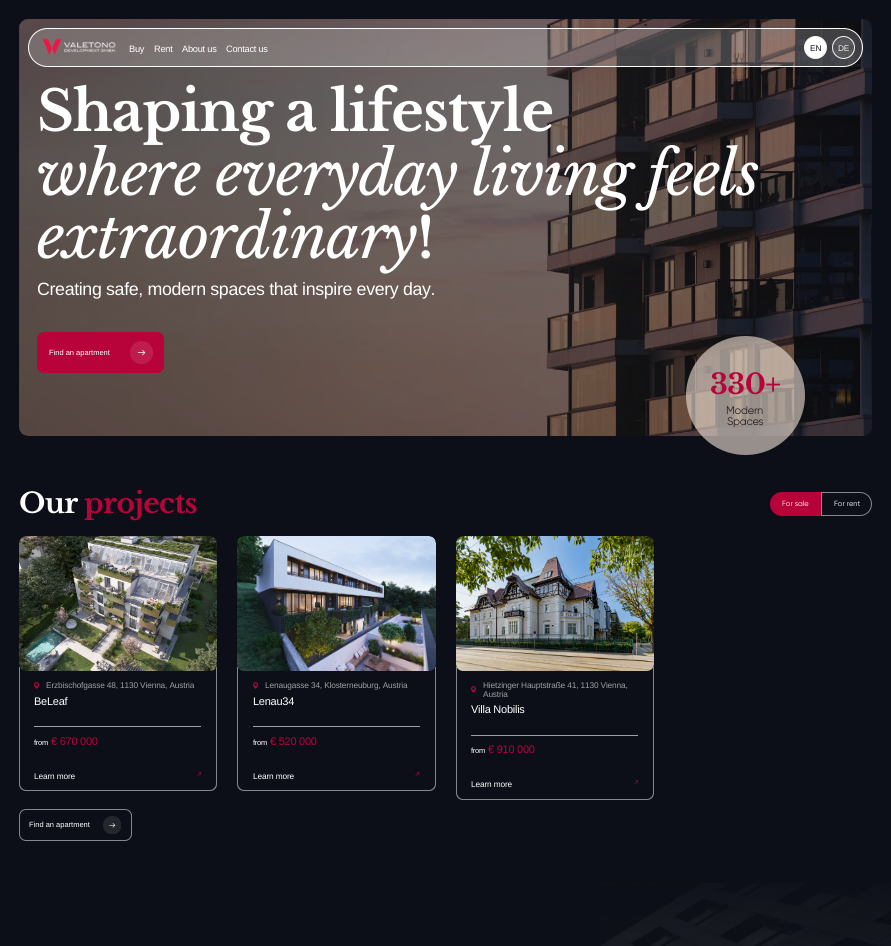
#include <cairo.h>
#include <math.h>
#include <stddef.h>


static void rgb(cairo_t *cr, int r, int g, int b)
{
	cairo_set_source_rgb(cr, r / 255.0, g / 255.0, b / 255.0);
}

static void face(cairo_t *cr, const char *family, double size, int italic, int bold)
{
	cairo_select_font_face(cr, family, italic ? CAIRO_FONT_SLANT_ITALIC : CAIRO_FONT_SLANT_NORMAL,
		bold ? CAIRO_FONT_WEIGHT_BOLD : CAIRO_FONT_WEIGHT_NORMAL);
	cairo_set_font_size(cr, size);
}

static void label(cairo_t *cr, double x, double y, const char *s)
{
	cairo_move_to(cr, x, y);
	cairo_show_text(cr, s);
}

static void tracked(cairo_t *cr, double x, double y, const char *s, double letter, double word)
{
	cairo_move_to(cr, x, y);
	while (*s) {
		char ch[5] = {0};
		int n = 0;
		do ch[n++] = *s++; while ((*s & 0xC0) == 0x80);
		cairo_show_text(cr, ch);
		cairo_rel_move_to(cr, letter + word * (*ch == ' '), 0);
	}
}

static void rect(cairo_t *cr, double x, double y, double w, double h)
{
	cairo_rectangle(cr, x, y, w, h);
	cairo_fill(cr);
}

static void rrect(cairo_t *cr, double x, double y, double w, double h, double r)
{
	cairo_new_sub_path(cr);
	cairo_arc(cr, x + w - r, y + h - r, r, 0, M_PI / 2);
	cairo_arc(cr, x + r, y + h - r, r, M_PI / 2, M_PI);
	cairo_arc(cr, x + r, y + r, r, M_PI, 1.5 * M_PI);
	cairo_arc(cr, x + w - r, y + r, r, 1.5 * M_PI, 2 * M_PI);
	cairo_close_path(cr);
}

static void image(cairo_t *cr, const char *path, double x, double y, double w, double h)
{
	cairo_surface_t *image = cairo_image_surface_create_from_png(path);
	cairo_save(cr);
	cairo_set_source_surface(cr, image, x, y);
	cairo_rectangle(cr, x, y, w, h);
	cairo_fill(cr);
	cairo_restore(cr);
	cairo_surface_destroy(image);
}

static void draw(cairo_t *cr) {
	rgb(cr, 12, 15, 23);
	cairo_paint(cr);
	image(cr, "image1.png", 19, 19, 853, 417);
	cairo_set_source_rgba(cr, 0.078, 0.078, 0.078, 0.5);
	rrect(cr, 19, 19, 853, 417, 9);
	cairo_fill(cr);
	cairo_set_source_rgba(cr, 1, 1, 1, 0.2);
	rrect(cr, 28.5, 28.5, 834, 38, 19);
	cairo_fill_preserve(cr);
	rgb(cr, 255, 255, 255);
	cairo_set_line_width(cr, 1);
	cairo_stroke(cr);
	image(cr, "image0.png", 42, 38, 74, 17);
	face(cr, "Liberation Sans", 9.25, 0, 0);
	tracked(cr, 129, 52, "Buy", -0.25, 0);
	tracked(cr, 154, 52, "Rent", -0.25, 0);
	tracked(cr, 182, 52, "About us", -0.25, 0);
	tracked(cr, 226, 52, "Contact us", -0.25, 0);
	cairo_new_path(cr);
	cairo_arc(cr, 815.5, 47.5, 11, 0, 2 * M_PI);
	cairo_fill_preserve(cr);
	rgb(cr, 245, 245, 245);
	cairo_stroke(cr);
	face(cr, "Liberation Sans", 8.3, 0, 0);
	rgb(cr, 12, 15, 23);
	tracked(cr, 810, 51, "EN", -0.15, 0);
	cairo_set_source_rgba(cr, 1, 1, 1, 0.1);
	cairo_new_path(cr);
	cairo_arc(cr, 843.5, 47.5, 11, 0, 2 * M_PI);
	cairo_fill_preserve(cr);
	rgb(cr, 245, 245, 245);
	cairo_stroke(cr);
	tracked(cr, 838, 51, "DE", -0.15, 0);
	face(cr, "Libre Baskerville", 55.75, 0, 1);
	rgb(cr, 255, 255, 255);
	tracked(cr, 37, 131, "Shaping a lifestyle", -1.1, 0);
	face(cr, "Libre Baskerville", 60.25, 1, 0);
	tracked(cr, 37, 195, "where everyday living feels", -1.1, 0);
	tracked(cr, 37, 258, "extraordinary", -1.1, 0);
	face(cr, "Libre Baskerville", 55.75, 0, 1);
	tracked(cr, 417, 258, "!", -1.1, 0);
	face(cr, "Liberation Sans", 17.8, 0, 0);
	tracked(cr, 37, 295, "Creating safe, modern spaces that inspire every day.", -0.35, 0);
	rgb(cr, 183, 3, 58);
	rrect(cr, 37, 332, 127, 41, 7);
	cairo_fill(cr);
	face(cr, "Liberation Sans", 7.5, 0, 0);
	rgb(cr, 255, 255, 255);
	label(cr, 49, 355, "Find an apartment");
	image(cr, "image2.png", 130, 341, 23, 23);
	cairo_set_source_rgba(cr, 0.945, 0.894, 0.851, 0.6);
	cairo_arc(cr, 745.5, 395.5, 59.5, 0, 2 * M_PI);
	cairo_fill(cr);
	face(cr, "Libre Baskerville", 28, 0, 1);
	rgb(cr, 183, 3, 58);
	tracked(cr, 710, 394, "330+", -0.5, 0);
	face(cr, "Gilroy", 11, 0, 0);
	rgb(cr, 40, 30, 35);
	tracked(cr, 726, 414, "Modern", -0.25, 0);
	tracked(cr, 727, 425, "Spaces", -0.25, 0);
	face(cr, "Libre Baskerville", 28, 0, 1);
	rgb(cr, 255, 255, 255);
	tracked(cr, 19, 513, "Our", -0.5, 0);
	rgb(cr, 183, 3, 58);
	tracked(cr, 84, 513, "projects", -0.5, 0);
	cairo_new_path(cr);
	cairo_move_to(cr, 782, 492.5);
	cairo_line_to(cr, 820.5, 492.5);
	cairo_line_to(cr, 820.5, 515.5);
	cairo_line_to(cr, 782, 515.5);
	cairo_curve_to(cr, 775.5, 515.5, 770.5, 510.5, 770.5, 504);
	cairo_curve_to(cr, 770.5, 497.5, 775.5, 492.5, 782, 492.5);
	cairo_close_path(cr);
	cairo_fill_preserve(cr);
	cairo_stroke(cr);
	face(cr, "Gilroy", 7.5, 0, 0);
	rgb(cr, 255, 255, 255);
	label(cr, 782, 506, "For sale");
	cairo_new_path(cr);
	cairo_move_to(cr, 821.5, 492.5);
	cairo_line_to(cr, 860, 492.5);
	cairo_curve_to(cr, 866.5, 492.5, 871.5, 497.5, 871.5, 504);
	cairo_curve_to(cr, 871.5, 510.5, 866.5, 515.5, 860, 515.5);
	cairo_line_to(cr, 821.5, 515.5);
	cairo_close_path(cr);
	rgb(cr, 134, 135, 139);
	cairo_stroke(cr);
	rgb(cr, 255, 255, 255);
	label(cr, 834, 506, "For rent");
	rgb(cr, 134, 135, 139);
	cairo_new_path(cr);
	cairo_move_to(cr, 20, 667);
	cairo_line_to(cr, 19, 667);
	cairo_line_to(cr, 19, 784);
	cairo_curve_to(cr, 19, 788, 22, 791, 26, 791);
	cairo_line_to(cr, 210, 791);
	cairo_curve_to(cr, 214, 791, 217, 788, 217, 784);
	cairo_line_to(cr, 217, 667);
	cairo_line_to(cr, 216, 667);
	cairo_line_to(cr, 216, 784);
	cairo_curve_to(cr, 216, 787, 213, 790, 210, 790);
	cairo_line_to(cr, 26, 790);
	cairo_curve_to(cr, 23, 790, 20, 787, 20, 784);
	cairo_close_path(cr);
	cairo_fill(cr);
	image(cr, "image3.png", 19, 536, 198, 135);
	image(cr, "image4.png", 34, 682, 5, 7);
	face(cr, "Liberation Sans", 8.3, 0, 0);
	rgb(cr, 158, 159, 162);
	tracked(cr, 46, 688, "Erzbischofgasse 48, 1130 Vienna, Austria", -0.15, 0);
	face(cr, "Liberation Sans", 11, 0, 0);
	rgb(cr, 255, 255, 255);
	tracked(cr, 34, 705, "BeLeaf", -0.25, 0);
	rgb(cr, 158, 159, 162);
	rect(cr, 34, 726, 167, 1);
	face(cr, "Liberation Sans", 7.5, 0, 0);
	rgb(cr, 255, 255, 255);
	tracked(cr, 34, 745, "from", -0.25, 0);
	face(cr, "Liberation Sans", 11, 0, 0);
	rgb(cr, 183, 3, 58);
	tracked(cr, 51, 745, "€ 670 000", -0.25, 0);
	face(cr, "Liberation Sans", 8.3, 0, 0);
	rgb(cr, 255, 255, 255);
	tracked(cr, 34, 779, "Learn more", -0.15, 0);
	image(cr, "image5.png", 197, 772, 4, 5);
	rgb(cr, 134, 135, 139);
	cairo_new_path(cr);
	cairo_move_to(cr, 238, 667);
	cairo_line_to(cr, 237, 667);
	cairo_line_to(cr, 237, 784);
	cairo_curve_to(cr, 237, 788, 240, 791, 244, 791);
	cairo_line_to(cr, 429, 791);
	cairo_curve_to(cr, 433, 791, 436, 788, 436, 784);
	cairo_line_to(cr, 436, 667);
	cairo_line_to(cr, 435, 667);
	cairo_line_to(cr, 435, 784);
	cairo_curve_to(cr, 435, 787, 432, 790, 429, 790);
	cairo_line_to(cr, 244, 790);
	cairo_curve_to(cr, 241, 790, 238, 787, 238, 784);
	cairo_close_path(cr);
	cairo_fill(cr);
	image(cr, "image6.png", 237, 536, 199, 135);
	image(cr, "image4.png", 253, 682, 5, 7);
	rgb(cr, 158, 159, 162);
	tracked(cr, 265, 688, "Lenaugasse 34, Klosterneuburg, Austria", -0.15, 0);
	face(cr, "Liberation Sans", 11, 0, 0);
	rgb(cr, 255, 255, 255);
	tracked(cr, 253, 705, "Lenau34", -0.25, 0);
	rgb(cr, 158, 159, 162);
	rect(cr, 253, 726, 167, 1);
	face(cr, "Liberation Sans", 7.5, 0, 0);
	rgb(cr, 255, 255, 255);
	tracked(cr, 253, 745, "from", -0.25, 0);
	face(cr, "Liberation Sans", 11, 0, 0);
	rgb(cr, 183, 3, 58);
	tracked(cr, 270, 745, "€ 520 000", -0.25, 0);
	face(cr, "Liberation Sans", 8.3, 0, 0);
	rgb(cr, 255, 255, 255);
	tracked(cr, 253, 779, "Learn more", -0.15, 0);
	image(cr, "image7.png", 415, 772, 5, 5);
	rgb(cr, 134, 135, 139);
	cairo_new_path(cr);
	cairo_move_to(cr, 457, 667);
	cairo_line_to(cr, 456, 667);
	cairo_line_to(cr, 456, 793);
	cairo_curve_to(cr, 456, 797, 459, 800, 463, 800);
	cairo_line_to(cr, 647, 800);
	cairo_curve_to(cr, 651, 800, 654, 797, 654, 793);
	cairo_line_to(cr, 654, 667);
	cairo_line_to(cr, 653, 667);
	cairo_line_to(cr, 653, 793);
	cairo_curve_to(cr, 653, 796, 650, 799, 647, 799);
	cairo_line_to(cr, 463, 799);
	cairo_curve_to(cr, 460, 799, 457, 796, 457, 793);
	cairo_close_path(cr);
	cairo_fill(cr);
	image(cr, "image8.png", 456, 536, 198, 135);
	image(cr, "image4.png", 471, 686, 5, 7);
	rgb(cr, 158, 159, 162);
	tracked(cr, 483, 688, "Hietzinger Hauptstraße 41, 1130 Vienna,", -0.15, 0);
	tracked(cr, 483, 697, "Austria", -0.15, 0);
	face(cr, "Liberation Sans", 11, 0, 0);
	rgb(cr, 255, 255, 255);
	tracked(cr, 471, 713, "Villa Nobilis", -0.25, 0);
	rgb(cr, 158, 159, 162);
	rect(cr, 471, 735, 167, 1);
	face(cr, "Liberation Sans", 7.5, 0, 0);
	rgb(cr, 255, 255, 255);
	tracked(cr, 471, 753, "from", -0.25, 0);
	face(cr, "Liberation Sans", 11, 0, 0);
	rgb(cr, 183, 3, 58);
	tracked(cr, 488, 753, "€ 910 000", -0.25, 0);
	face(cr, "Liberation Sans", 8.3, 0, 0);
	rgb(cr, 255, 255, 255);
	tracked(cr, 471, 787, "Learn more", -0.15, 0);
	image(cr, "image5.png", 634, 780, 4, 5);
	rrect(cr, 19.5, 809.5, 112, 31, 6.5);
	rgb(cr, 134, 135, 139);
	cairo_stroke(cr);
	face(cr, "Liberation Sans", 7.5, 0, 0);
	rgb(cr, 255, 255, 255);
	label(cr, 29, 827, "Find an apartment");
	image(cr, "image9.png", 103, 816, 18, 18);
	image(cr, "image10.png", 600, 883, 291, 63);
}

int main(void) {
	cairo_surface_t *surface = cairo_image_surface_create(CAIRO_FORMAT_RGB24, 891, 946);
	cairo_t *cr = cairo_create(surface);
	cairo_font_options_t *options = cairo_font_options_create();
	cairo_font_options_set_hint_metrics(options, CAIRO_HINT_METRICS_OFF);
	cairo_font_options_set_hint_style(options, CAIRO_HINT_STYLE_NONE);
	cairo_set_font_options(cr, options);
	cairo_set_miter_limit(cr, 4);
	draw(cr);
	cairo_surface_write_to_png(surface, "render.png");
	cairo_font_options_destroy(options);
	cairo_destroy(cr);
	cairo_surface_destroy(surface);
	return 0;
}
